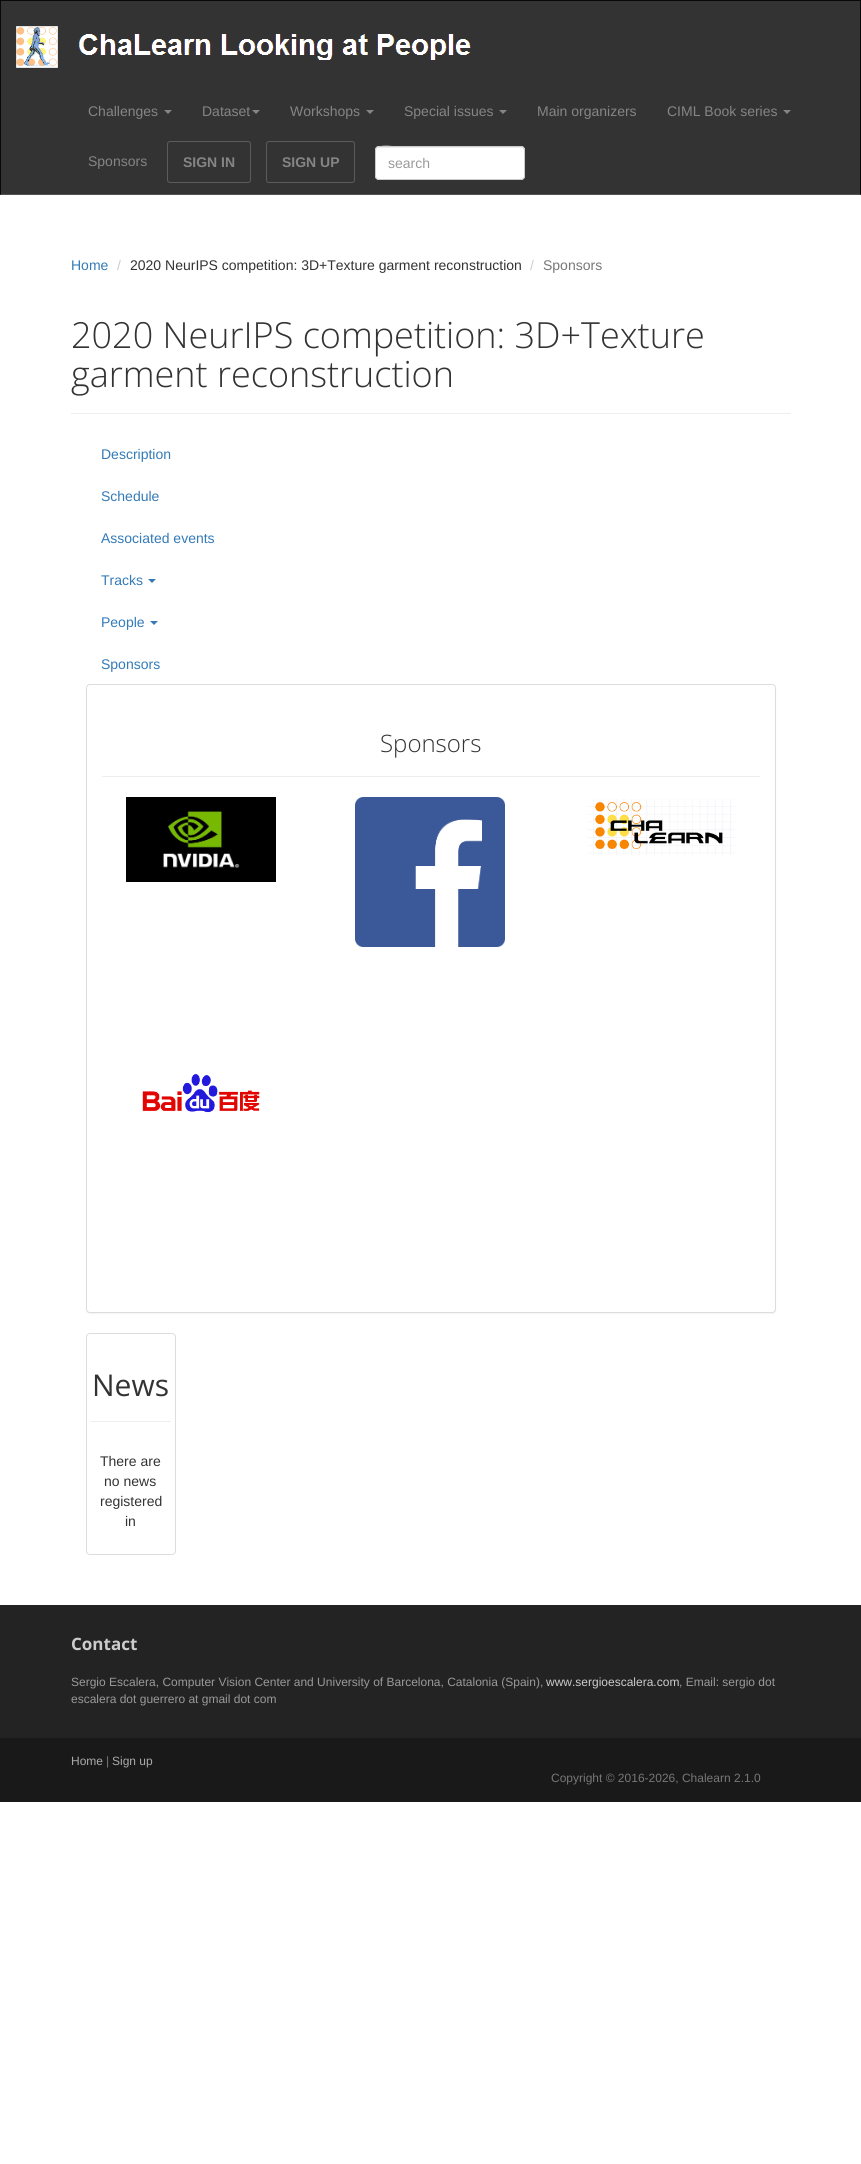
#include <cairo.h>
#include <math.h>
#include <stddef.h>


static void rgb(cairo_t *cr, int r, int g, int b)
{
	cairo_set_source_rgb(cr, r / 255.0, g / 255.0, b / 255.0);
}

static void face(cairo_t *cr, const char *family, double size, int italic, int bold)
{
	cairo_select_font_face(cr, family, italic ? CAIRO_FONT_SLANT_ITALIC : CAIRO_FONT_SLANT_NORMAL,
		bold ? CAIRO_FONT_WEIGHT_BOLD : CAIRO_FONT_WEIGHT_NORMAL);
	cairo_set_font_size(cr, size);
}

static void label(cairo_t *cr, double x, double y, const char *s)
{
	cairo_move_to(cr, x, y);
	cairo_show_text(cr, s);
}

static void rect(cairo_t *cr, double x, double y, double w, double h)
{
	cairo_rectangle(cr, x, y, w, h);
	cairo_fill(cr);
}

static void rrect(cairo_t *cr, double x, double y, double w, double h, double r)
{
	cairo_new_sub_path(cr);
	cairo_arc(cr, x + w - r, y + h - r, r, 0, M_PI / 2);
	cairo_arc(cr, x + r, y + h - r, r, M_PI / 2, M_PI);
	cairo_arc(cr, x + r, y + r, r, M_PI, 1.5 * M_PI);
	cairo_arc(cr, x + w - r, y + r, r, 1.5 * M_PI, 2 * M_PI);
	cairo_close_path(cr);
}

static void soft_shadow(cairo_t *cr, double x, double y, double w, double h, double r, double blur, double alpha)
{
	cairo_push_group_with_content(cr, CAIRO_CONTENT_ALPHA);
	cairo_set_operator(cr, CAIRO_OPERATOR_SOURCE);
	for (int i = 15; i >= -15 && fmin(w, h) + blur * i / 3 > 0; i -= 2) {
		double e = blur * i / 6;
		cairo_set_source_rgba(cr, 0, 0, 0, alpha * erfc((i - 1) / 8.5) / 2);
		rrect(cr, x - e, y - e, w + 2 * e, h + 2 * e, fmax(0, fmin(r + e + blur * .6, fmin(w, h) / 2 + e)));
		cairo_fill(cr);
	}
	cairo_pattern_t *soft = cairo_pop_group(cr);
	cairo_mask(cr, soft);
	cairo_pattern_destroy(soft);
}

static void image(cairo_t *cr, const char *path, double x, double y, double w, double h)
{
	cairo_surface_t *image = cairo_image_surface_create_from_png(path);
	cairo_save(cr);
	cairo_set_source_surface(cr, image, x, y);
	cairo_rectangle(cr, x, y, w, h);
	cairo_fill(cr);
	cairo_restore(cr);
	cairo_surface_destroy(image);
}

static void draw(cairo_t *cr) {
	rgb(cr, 255, 255, 255);
	cairo_paint(cr);
	rgb(cr, 51, 51, 51);
	rect(cr, 0, 1, 861, 194);
	rgb(cr, 8, 8, 8);
	rect(cr, 0, 0, 861, 1);
	cairo_new_path(cr);
	cairo_move_to(cr, 861, 0);
	cairo_line_to(cr, 861, 195);
	cairo_line_to(cr, 860, 194);
	cairo_line_to(cr, 860, 1);
	cairo_close_path(cr);
	cairo_fill(cr);
	cairo_set_source_rgba(cr, 1, 1, 1, 0.15);
	cairo_new_path(cr);
	cairo_move_to(cr, 861, 195);
	cairo_line_to(cr, 0, 195);
	cairo_line_to(cr, 1, 194);
	cairo_line_to(cr, 860, 194);
	cairo_close_path(cr);
	cairo_fill(cr);
	rgb(cr, 8, 8, 8);
	cairo_new_path(cr);
	cairo_move_to(cr, 0, 195);
	cairo_line_to(cr, 0, 0);
	cairo_line_to(cr, 1, 1);
	cairo_line_to(cr, 1, 194);
	cairo_close_path(cr);
	cairo_fill(cr);
	image(cr, "image0.png", 16, 26, 42, 42);
	image(cr, "image1.png", 79, 34, 392, 26);
	face(cr, "Liberation Sans", 14, 0, 0);
	rgb(cr, 133, 133, 133);
	label(cr, 88, 116, "Challenges");
	cairo_new_path(cr);
	cairo_move_to(cr, 164, 110);
	cairo_line_to(cr, 172, 110);
	cairo_line_to(cr, 168, 114);
	cairo_close_path(cr);
	cairo_fill(cr);
	label(cr, 202, 116, "Dataset");
	cairo_new_path(cr);
	cairo_move_to(cr, 252, 110);
	cairo_line_to(cr, 260, 110);
	cairo_line_to(cr, 256, 114);
	cairo_close_path(cr);
	cairo_fill(cr);
	label(cr, 290, 116, "Workshops");
	cairo_new_path(cr);
	cairo_move_to(cr, 366, 110);
	cairo_line_to(cr, 374, 110);
	cairo_line_to(cr, 370, 114);
	cairo_close_path(cr);
	cairo_fill(cr);
	label(cr, 404, 116, "Special issues");
	cairo_new_path(cr);
	cairo_move_to(cr, 499, 110);
	cairo_line_to(cr, 507, 110);
	cairo_line_to(cr, 503, 114);
	cairo_close_path(cr);
	cairo_fill(cr);
	label(cr, 537, 116, "Main organizers");
	label(cr, 667, 116, "CIML Book series");
	cairo_new_path(cr);
	cairo_move_to(cr, 783, 110);
	cairo_line_to(cr, 791, 110);
	cairo_line_to(cr, 787, 114);
	cairo_close_path(cr);
	cairo_fill(cr);
	label(cr, 88, 166, "Sponsors");
	rrect(cr, 167.5, 141.5, 83, 41, 2.5);
	rgb(cr, 92, 92, 92);
	cairo_set_line_width(cr, 1);
	cairo_stroke(cr);
	face(cr, "Liberation Sans", 14, 0, 1);
	rgb(cr, 133, 133, 133);
	label(cr, 183, 167, "SIGN IN");
	rrect(cr, 266.5, 141.5, 88, 41, 2.5);
	rgb(cr, 92, 92, 92);
	cairo_stroke(cr);
	rgb(cr, 133, 133, 133);
	label(cr, 282, 167, "SIGN UP");
	rgb(cr, 255, 255, 255);
	rrect(cr, 375, 146, 150, 34, 4);
	cairo_fill(cr);
	rgb(cr, 236, 236, 236);
	cairo_new_path(cr);
	cairo_move_to(cr, 379, 148);
	cairo_line_to(cr, 521, 148);
	cairo_curve_to(cr, 523, 148, 524, 149, 524, 151);
	cairo_curve_to(cr, 524, 149, 524, 148, 522, 147);
	cairo_line_to(cr, 403, 147);
	cairo_curve_to(cr, 395, 147, 376, 142, 376, 151);
	cairo_curve_to(cr, 376, 149, 377, 148, 379, 148);
	cairo_close_path(cr);
	cairo_fill(cr);
	rrect(cr, 375.5, 146.5, 149, 33, 3.5);
	rgb(cr, 204, 204, 204);
	cairo_stroke(cr);
	face(cr, "Liberation Sans", 14, 0, 0);
	rgb(cr, 153, 153, 153);
	label(cr, 388, 168, "search");
	rgb(cr, 51, 122, 183);
	label(cr, 71, 270, "Home");
	rgb(cr, 204, 204, 204);
	label(cr, 117, 270, "/");
	rgb(cr, 51, 51, 51);
	label(cr, 130, 270, "2020 NeurIPS competition: 3D+Texture garment reconstruction");
	rgb(cr, 204, 204, 204);
	label(cr, 530, 270, "/");
	rgb(cr, 119, 119, 119);
	label(cr, 543, 270, "Sponsors");
	rgb(cr, 238, 238, 238);
	rect(cr, 71, 413, 720, 1);
	face(cr, "Open Sans Light", 36, 0, 0);
	rgb(cr, 51, 51, 51);
	label(cr, 71, 348, "2020 NeurIPS competition: 3D+Texture");
	label(cr, 71, 387, "garment reconstruction");
	face(cr, "Liberation Sans", 14, 0, 0);
	rgb(cr, 51, 122, 183);
	label(cr, 101, 459, "Description");
	label(cr, 101, 501, "Schedule");
	label(cr, 101, 543, "Associated events");
	label(cr, 101, 585, "Tracks");
	cairo_new_path(cr);
	cairo_move_to(cr, 148, 579);
	cairo_line_to(cr, 156, 579);
	cairo_line_to(cr, 152, 583);
	cairo_close_path(cr);
	cairo_fill(cr);
	label(cr, 101, 627, "People");
	cairo_new_path(cr);
	cairo_move_to(cr, 150, 621);
	cairo_line_to(cr, 158, 621);
	cairo_line_to(cr, 154, 625);
	cairo_close_path(cr);
	cairo_fill(cr);
	label(cr, 101, 669, "Sponsors");
	rgb(cr, 0, 0, 0);
	soft_shadow(cr, 86, 685, 690, 629, 4, 0.5, 0.05);
	rgb(cr, 255, 255, 255);
	rrect(cr, 86.5, 684.5, 689, 628, 3.5);
	cairo_fill_preserve(cr);
	rgb(cr, 221, 221, 221);
	cairo_stroke(cr);
	face(cr, "Open Sans Light", 24, 0, 0);
	rgb(cr, 51, 51, 51);
	label(cr, 380, 752, "Sponsors");
	rgb(cr, 238, 238, 238);
	rect(cr, 102, 776, 658, 1);
	image(cr, "image2.png", 126, 797, 150, 85);
	image(cr, "image3.png", 355, 797, 150, 150);
	image(cr, "image4.png", 587, 799, 148, 56);
	image(cr, "image5.png", 142, 1074, 118, 39);
	rrect(cr, 86.5, 1333.5, 89, 221, 3.5);
	rgb(cr, 221, 221, 221);
	cairo_stroke(cr);
	face(cr, "Open Sans", 30, 0, 0);
	rgb(cr, 51, 51, 51);
	label(cr, 92, 1396, "News");
	rgb(cr, 238, 238, 238);
	rect(cr, 91, 1421, 80, 1);
	face(cr, "Liberation Sans", 14, 0, 0);
	rgb(cr, 51, 51, 51);
	label(cr, 100, 1466, "There are");
	label(cr, 104, 1486, "no news");
	label(cr, 100, 1506, "registered");
	label(cr, 125, 1526, "in");
	rgb(cr, 35, 35, 35);
	rect(cr, 0, 1605, 861, 133);
	face(cr, "Open Sans", 17, 0, 1);
	rgb(cr, 204, 204, 204);
	label(cr, 71, 1650, "Contact");
	face(cr, "Liberation Sans", 12, 0, 0);
	rgb(cr, 153, 153, 153);
	label(cr, 71, 1686, "Sergio Escalera, Computer Vision Center and University of Barcelona, Catalonia (Spain),");
	rgb(cr, 204, 204, 204);
	label(cr, 546, 1686, "www.sergioescalera.com");
	rgb(cr, 153, 153, 153);
	label(cr, 679, 1686, ", Email: sergio dot");
	label(cr, 71, 1703, "escalera dot guerrero at gmail dot com");
	rgb(cr, 25, 25, 25);
	rect(cr, 0, 1738, 861, 64);
	rgb(cr, 170, 170, 170);
	label(cr, 71, 1765, "Home");
	rgb(cr, 119, 119, 119);
	label(cr, 106, 1765, "|");
	rgb(cr, 170, 170, 170);
	label(cr, 112, 1765, "Sign up");
	rgb(cr, 119, 119, 119);
	label(cr, 551, 1782, "Copyright © 2016-2026, Chalearn 2.1.0");
}

int main(void) {
	cairo_surface_t *surface = cairo_image_surface_create(CAIRO_FORMAT_RGB24, 861, 2164);
	cairo_t *cr = cairo_create(surface);
	cairo_font_options_t *options = cairo_font_options_create();
	cairo_font_options_set_hint_metrics(options, CAIRO_HINT_METRICS_OFF);
	cairo_font_options_set_hint_style(options, CAIRO_HINT_STYLE_NONE);
	cairo_set_font_options(cr, options);
	cairo_set_miter_limit(cr, 4);
	draw(cr);
	cairo_surface_write_to_png(surface, "render.png");
	cairo_font_options_destroy(options);
	cairo_destroy(cr);
	cairo_surface_destroy(surface);
	return 0;
}
